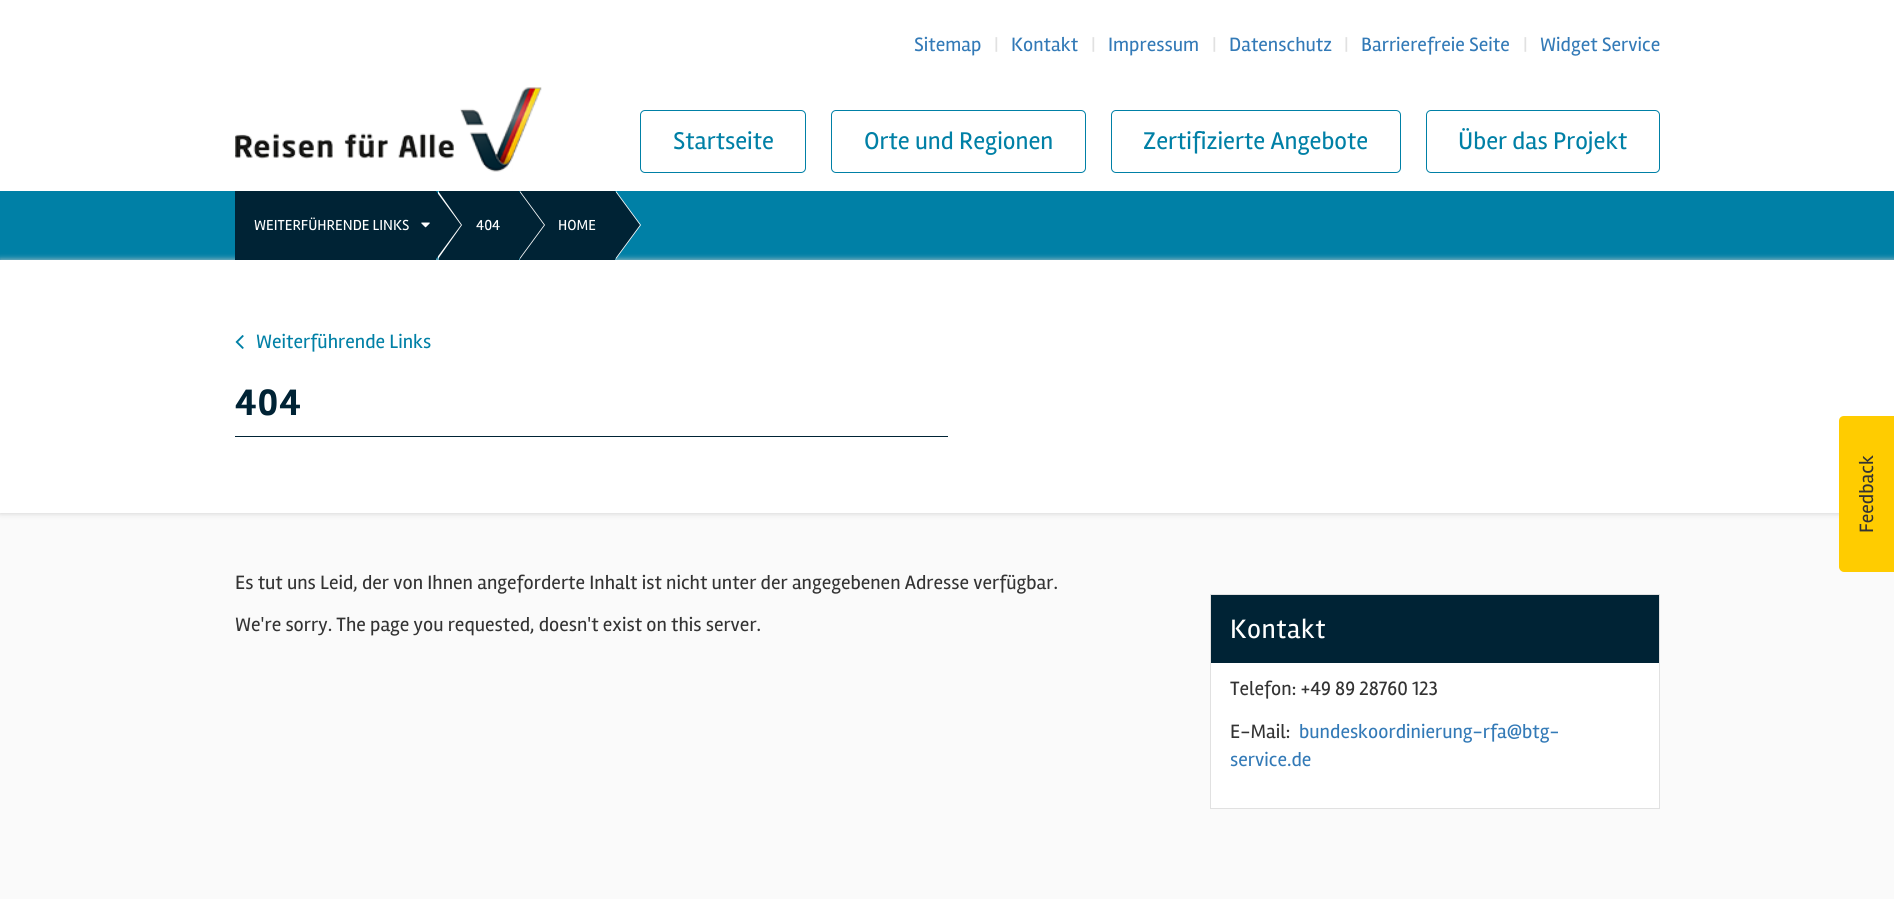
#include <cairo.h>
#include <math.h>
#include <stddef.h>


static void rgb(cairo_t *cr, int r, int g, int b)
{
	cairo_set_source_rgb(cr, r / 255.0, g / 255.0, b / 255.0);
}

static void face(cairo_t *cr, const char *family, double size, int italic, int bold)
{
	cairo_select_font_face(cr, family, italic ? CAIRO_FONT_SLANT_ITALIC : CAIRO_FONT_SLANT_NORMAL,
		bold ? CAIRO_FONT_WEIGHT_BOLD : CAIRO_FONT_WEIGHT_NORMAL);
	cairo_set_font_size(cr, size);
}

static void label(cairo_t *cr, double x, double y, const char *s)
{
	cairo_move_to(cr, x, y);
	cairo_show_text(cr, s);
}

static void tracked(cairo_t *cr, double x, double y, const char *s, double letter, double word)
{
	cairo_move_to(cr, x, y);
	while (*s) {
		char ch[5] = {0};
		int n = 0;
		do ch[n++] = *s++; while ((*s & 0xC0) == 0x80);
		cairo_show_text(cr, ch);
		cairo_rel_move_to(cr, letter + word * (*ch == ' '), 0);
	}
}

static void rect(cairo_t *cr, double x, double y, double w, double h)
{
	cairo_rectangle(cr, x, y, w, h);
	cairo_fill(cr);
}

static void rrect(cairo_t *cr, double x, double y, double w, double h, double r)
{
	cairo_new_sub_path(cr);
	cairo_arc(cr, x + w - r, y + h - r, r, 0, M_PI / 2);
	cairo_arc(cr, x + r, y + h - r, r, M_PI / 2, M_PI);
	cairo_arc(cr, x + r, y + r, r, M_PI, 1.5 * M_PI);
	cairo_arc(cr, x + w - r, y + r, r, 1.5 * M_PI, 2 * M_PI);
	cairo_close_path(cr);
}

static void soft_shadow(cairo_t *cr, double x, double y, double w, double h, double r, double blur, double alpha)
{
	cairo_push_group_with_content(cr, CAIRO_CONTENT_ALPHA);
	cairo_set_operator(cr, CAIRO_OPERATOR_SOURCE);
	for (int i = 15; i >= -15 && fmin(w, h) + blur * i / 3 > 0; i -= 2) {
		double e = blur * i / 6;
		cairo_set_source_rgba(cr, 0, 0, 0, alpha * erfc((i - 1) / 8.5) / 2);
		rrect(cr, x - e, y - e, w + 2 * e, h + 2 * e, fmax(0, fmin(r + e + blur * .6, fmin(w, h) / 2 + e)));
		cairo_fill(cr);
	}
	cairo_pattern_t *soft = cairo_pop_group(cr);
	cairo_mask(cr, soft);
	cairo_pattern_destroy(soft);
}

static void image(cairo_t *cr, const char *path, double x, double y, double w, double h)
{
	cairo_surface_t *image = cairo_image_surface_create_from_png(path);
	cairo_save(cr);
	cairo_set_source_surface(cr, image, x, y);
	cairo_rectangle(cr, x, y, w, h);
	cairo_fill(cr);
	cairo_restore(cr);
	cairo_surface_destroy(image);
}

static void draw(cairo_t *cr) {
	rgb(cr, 250, 250, 250);
	cairo_paint(cr);
	rgb(cr, 255, 255, 255);
	rect(cr, 0, 0, 1894, 191);
	image(cr, "image0.png", 235, 87, 307, 85);
	face(cr, "Rambla", 20, 0, 0);
	rgb(cr, 51, 122, 183);
	label(cr, 914, 51, "Sitemap");
	rgb(cr, 225, 225, 225);
	label(cr, 994, 51, "|");
	rgb(cr, 51, 122, 183);
	label(cr, 1011, 51, "Kontakt");
	rgb(cr, 225, 225, 225);
	label(cr, 1091, 51, "|");
	rgb(cr, 51, 122, 183);
	label(cr, 1108, 51, "Impressum");
	rgb(cr, 225, 225, 225);
	label(cr, 1212, 51, "|");
	rgb(cr, 51, 122, 183);
	label(cr, 1229, 51, "Datenschutz");
	rgb(cr, 225, 225, 225);
	label(cr, 1344, 51, "|");
	rgb(cr, 51, 122, 183);
	label(cr, 1361, 51, "Barrierefreie Seite");
	rgb(cr, 225, 225, 225);
	label(cr, 1523, 51, "|");
	rgb(cr, 51, 122, 183);
	label(cr, 1540, 51, "Widget Service");
	rrect(cr, 640.5, 110.5, 165, 62, 4.5);
	rgb(cr, 0, 128, 166);
	cairo_set_line_width(cr, 1);
	cairo_stroke(cr);
	face(cr, "Rambla", 25, 0, 0);
	label(cr, 673, 149, "Startseite");
	rrect(cr, 831.5, 110.5, 254, 62, 4.5);
	cairo_stroke(cr);
	label(cr, 864, 149, "Orte und Regionen");
	rrect(cr, 1111.5, 110.5, 289, 62, 4.5);
	cairo_stroke(cr);
	label(cr, 1143, 149, "Zertifizierte Angebote");
	rrect(cr, 1426.5, 110.5, 233, 62, 4.5);
	cairo_stroke(cr);
	label(cr, 1458, 149, "Über das Projekt");
	rect(cr, 0, 191, 1894, 69);
	rgb(cr, 204, 204, 204);
	soft_shadow(cr, 0, 260, 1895, 253, 0, 3, 1);
	rgb(cr, 0, 35, 53);
	rect(cr, 235, 191, 201, 69);
	rect(cr, 439, 191, 80, 69);
	rgb(cr, 255, 255, 255);
	cairo_new_path(cr);
	cairo_move_to(cr, 438, 259);
	cairo_line_to(cr, 438, 191);
	cairo_line_to(cr, 462, 225);
	cairo_close_path(cr);
	cairo_fill(cr);
	rgb(cr, 0, 35, 53);
	cairo_new_path(cr);
	cairo_move_to(cr, 436, 259);
	cairo_line_to(cr, 436, 191);
	cairo_line_to(cr, 461, 225);
	cairo_close_path(cr);
	cairo_fill(cr);
	face(cr, "Rambla", 15, 0, 0);
	rgb(cr, 255, 255, 255);
	label(cr, 254, 230, "WEITERFÜHRENDE LINKS");
	image(cr, "image1.png", 421, 222, 9, 6);
	rgb(cr, 0, 35, 53);
	rect(cr, 520, 191, 95, 69);
	rgb(cr, 255, 255, 255);
	cairo_new_path(cr);
	cairo_move_to(cr, 520, 259);
	cairo_line_to(cr, 520, 191);
	cairo_line_to(cr, 545, 225);
	cairo_close_path(cr);
	cairo_fill(cr);
	rgb(cr, 0, 35, 53);
	cairo_new_path(cr);
	cairo_move_to(cr, 519, 259);
	cairo_line_to(cr, 519, 191);
	cairo_line_to(cr, 544, 225);
	cairo_close_path(cr);
	cairo_fill(cr);
	rgb(cr, 255, 255, 255);
	label(cr, 476, 230, "404");
	cairo_new_path(cr);
	cairo_move_to(cr, 616, 259);
	cairo_line_to(cr, 616, 191);
	cairo_line_to(cr, 641, 225);
	cairo_close_path(cr);
	cairo_fill(cr);
	rgb(cr, 0, 35, 53);
	cairo_new_path(cr);
	cairo_move_to(cr, 615, 259);
	cairo_line_to(cr, 615, 191);
	cairo_line_to(cr, 640, 225);
	cairo_close_path(cr);
	cairo_fill(cr);
	rgb(cr, 255, 255, 255);
	label(cr, 558, 230, "HOME");
	rect(cr, 0, 260, 1894, 253);
	image(cr, "image2.png", 235, 335, 9, 14);
	face(cr, "Rambla", 20, 0, 0);
	rgb(cr, 0, 128, 166);
	label(cr, 256, 348, "Weiterführende Links");
	rgb(cr, 0, 35, 53);
	rect(cr, 235, 436, 713, 1);
	face(cr, "Rambla", 38, 0, 1);
	tracked(cr, 235, 415, "404", 1, 0);
	face(cr, "Rambla", 20, 0, 0);
	rgb(cr, 51, 51, 51);
	label(cr, 235, 589, "Es tut uns Leid, der von Ihnen angeforderte Inhalt ist nicht unter der angegebenen Adresse verfügbar.");
	label(cr, 235, 631, "We're sorry. The page you requested, doesn't exist on this server.");
	rgb(cr, 255, 255, 255);
	rect(cr, 1211, 663, 448, 145);
	cairo_rectangle(cr, 1210.5, 594.5, 449, 214);
	rgb(cr, 225, 225, 225);
	cairo_stroke(cr);
	rgb(cr, 0, 35, 53);
	rect(cr, 1211, 595, 448, 68);
	face(cr, "Rambla", 27.5, 0, 0);
	rgb(cr, 255, 255, 255);
	tracked(cr, 1230, 638, "Kontakt", 0.5, 0);
	face(cr, "Rambla", 20, 0, 0);
	rgb(cr, 51, 51, 51);
	label(cr, 1230, 695, "Telefon: +49 89 28760 123");
	label(cr, 1230, 738, "E-Mail:");
	rgb(cr, 51, 122, 183);
	label(cr, 1299, 738, "bundeskoordinierung-rfa@btg-");
	label(cr, 1230, 766, "service.de");
	rgb(cr, 255, 204, 0);
	cairo_new_path(cr);
	cairo_move_to(cr, 1839, 567);
	cairo_line_to(cr, 1839, 421);
	cairo_curve_to(cr, 1839, 418, 1841, 416, 1844, 416);
	cairo_line_to(cr, 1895, 416);
	cairo_line_to(cr, 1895, 572);
	cairo_line_to(cr, 1844, 572);
	cairo_curve_to(cr, 1841, 572, 1839, 569, 1839, 567);
	cairo_close_path(cr);
	cairo_fill(cr);
	rgb(cr, 51, 51, 51);
	cairo_save(cr);
	cairo_translate(cr, 1873, 533);
	cairo_rotate(cr, -90 * M_PI / 180);
	label(cr, 0, 0, "Feedback");
	cairo_restore(cr);
}

int main(void) {
	cairo_surface_t *surface = cairo_image_surface_create(CAIRO_FORMAT_RGB24, 1894, 899);
	cairo_t *cr = cairo_create(surface);
	cairo_font_options_t *options = cairo_font_options_create();
	cairo_font_options_set_hint_metrics(options, CAIRO_HINT_METRICS_OFF);
	cairo_font_options_set_hint_style(options, CAIRO_HINT_STYLE_NONE);
	cairo_set_font_options(cr, options);
	cairo_set_miter_limit(cr, 4);
	draw(cr);
	cairo_surface_write_to_png(surface, "render.png");
	cairo_font_options_destroy(options);
	cairo_destroy(cr);
	cairo_surface_destroy(surface);
	return 0;
}
